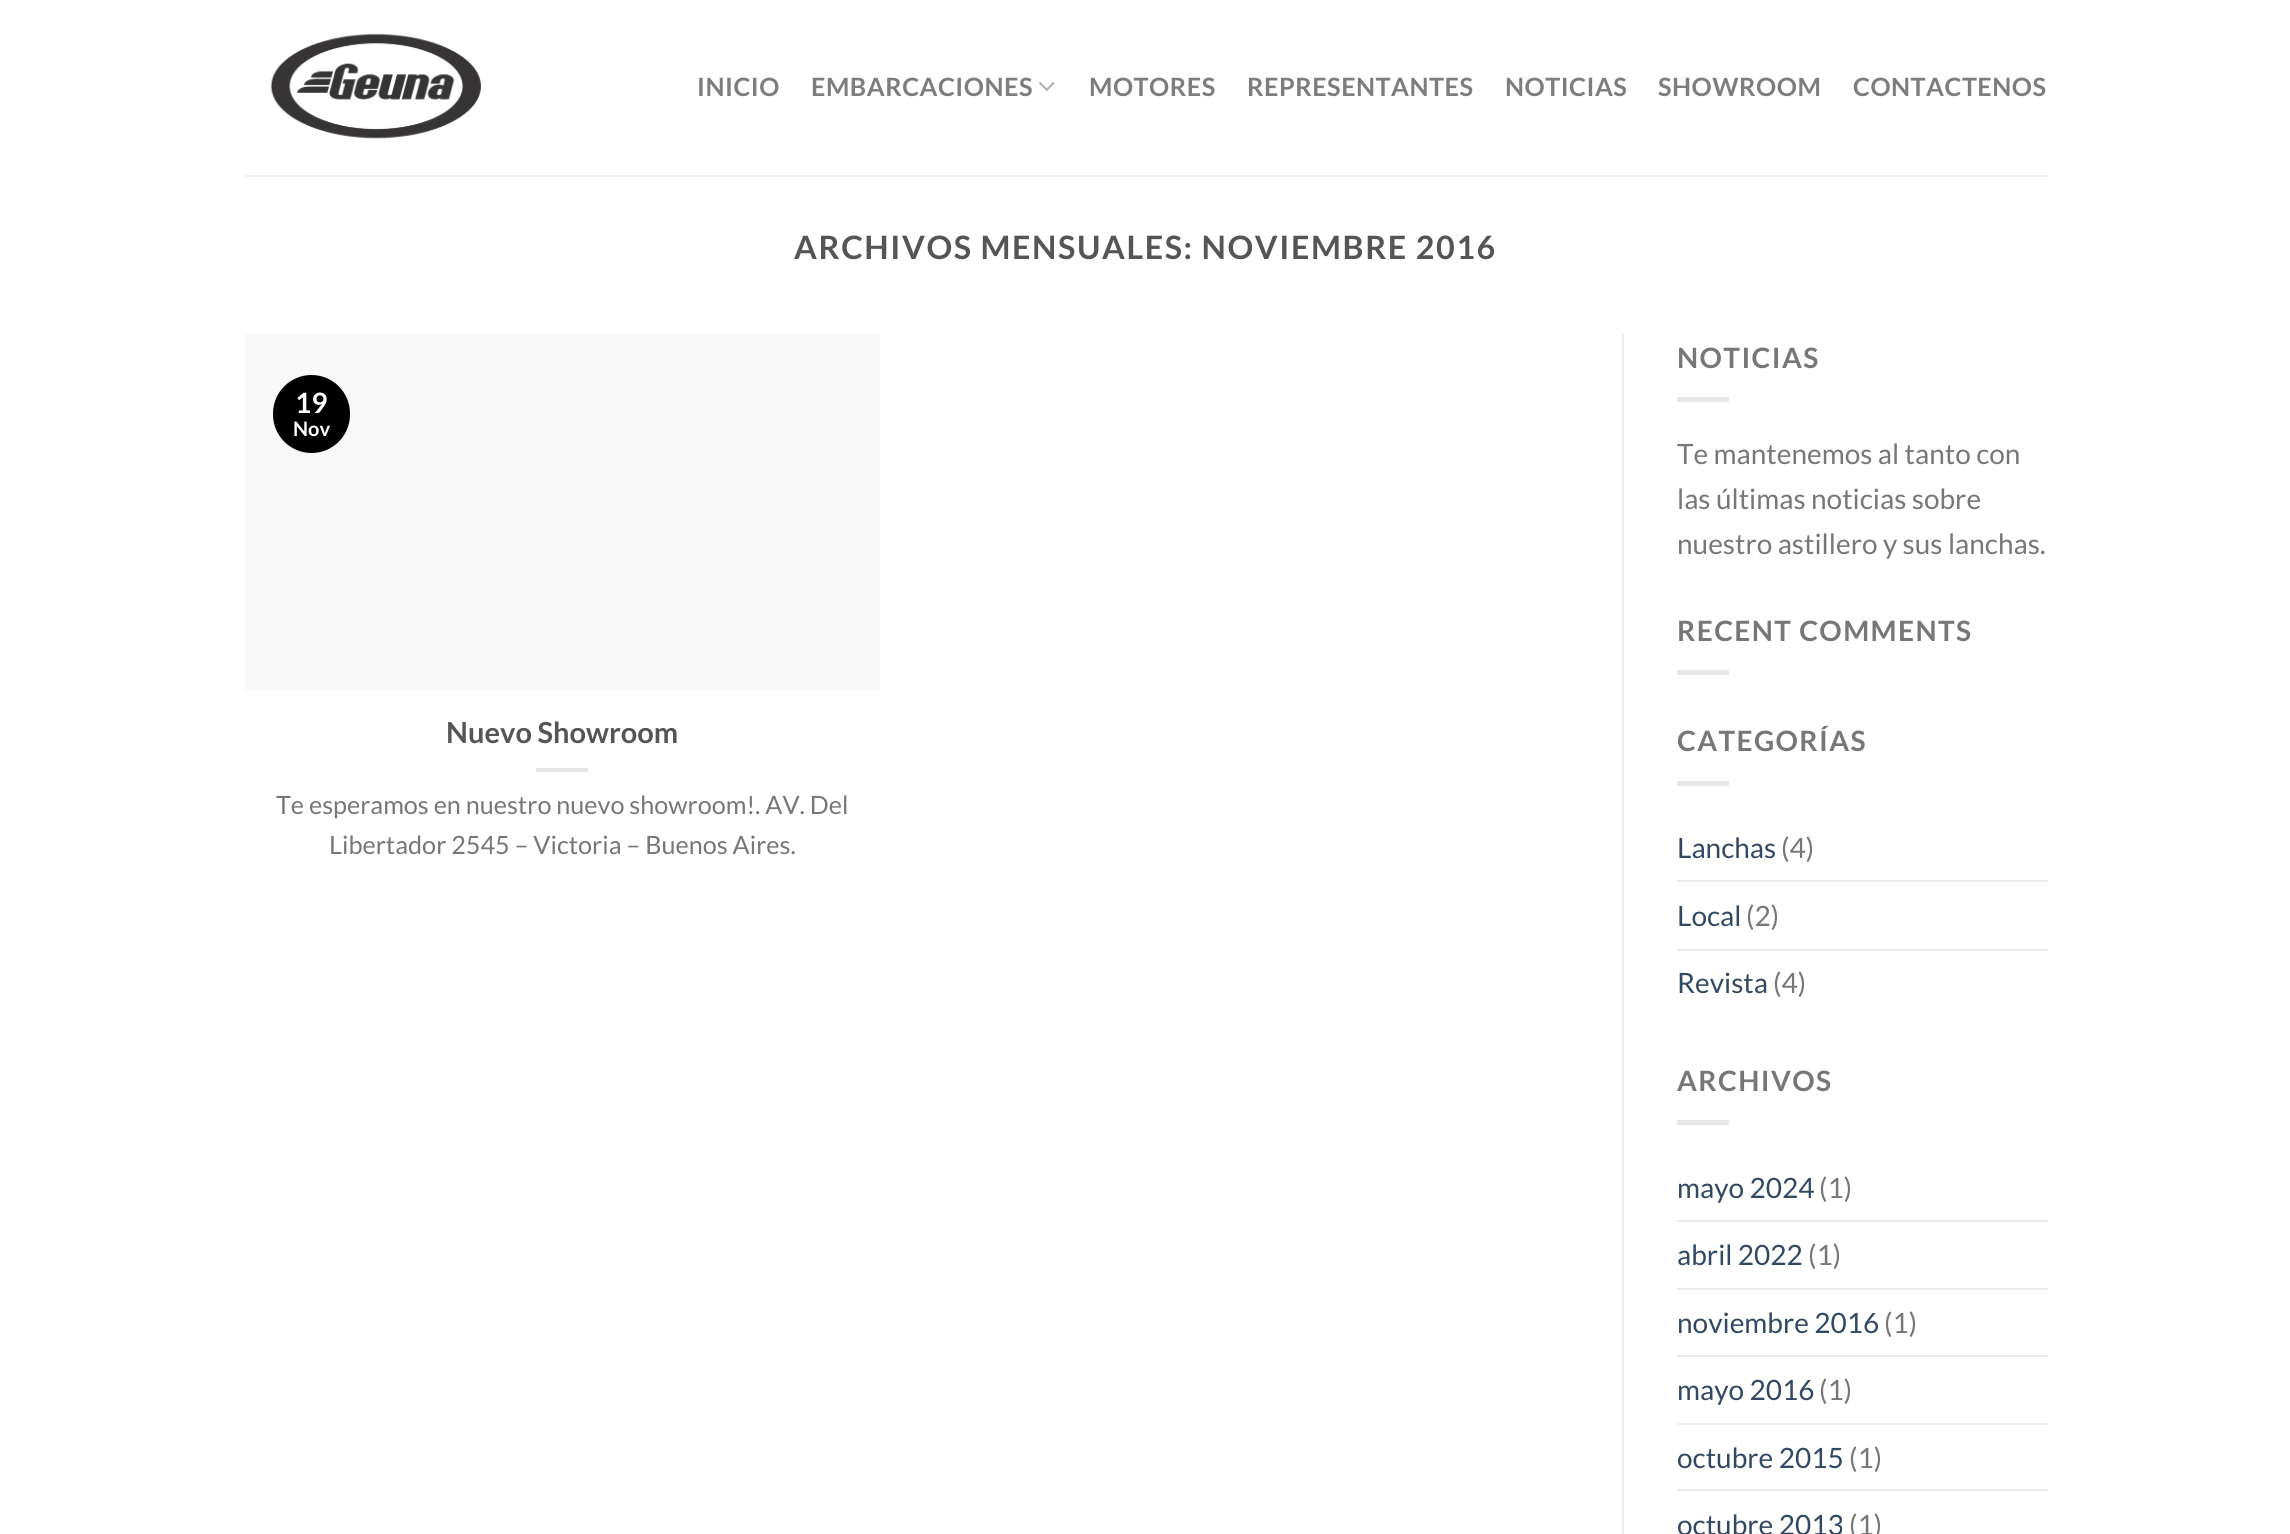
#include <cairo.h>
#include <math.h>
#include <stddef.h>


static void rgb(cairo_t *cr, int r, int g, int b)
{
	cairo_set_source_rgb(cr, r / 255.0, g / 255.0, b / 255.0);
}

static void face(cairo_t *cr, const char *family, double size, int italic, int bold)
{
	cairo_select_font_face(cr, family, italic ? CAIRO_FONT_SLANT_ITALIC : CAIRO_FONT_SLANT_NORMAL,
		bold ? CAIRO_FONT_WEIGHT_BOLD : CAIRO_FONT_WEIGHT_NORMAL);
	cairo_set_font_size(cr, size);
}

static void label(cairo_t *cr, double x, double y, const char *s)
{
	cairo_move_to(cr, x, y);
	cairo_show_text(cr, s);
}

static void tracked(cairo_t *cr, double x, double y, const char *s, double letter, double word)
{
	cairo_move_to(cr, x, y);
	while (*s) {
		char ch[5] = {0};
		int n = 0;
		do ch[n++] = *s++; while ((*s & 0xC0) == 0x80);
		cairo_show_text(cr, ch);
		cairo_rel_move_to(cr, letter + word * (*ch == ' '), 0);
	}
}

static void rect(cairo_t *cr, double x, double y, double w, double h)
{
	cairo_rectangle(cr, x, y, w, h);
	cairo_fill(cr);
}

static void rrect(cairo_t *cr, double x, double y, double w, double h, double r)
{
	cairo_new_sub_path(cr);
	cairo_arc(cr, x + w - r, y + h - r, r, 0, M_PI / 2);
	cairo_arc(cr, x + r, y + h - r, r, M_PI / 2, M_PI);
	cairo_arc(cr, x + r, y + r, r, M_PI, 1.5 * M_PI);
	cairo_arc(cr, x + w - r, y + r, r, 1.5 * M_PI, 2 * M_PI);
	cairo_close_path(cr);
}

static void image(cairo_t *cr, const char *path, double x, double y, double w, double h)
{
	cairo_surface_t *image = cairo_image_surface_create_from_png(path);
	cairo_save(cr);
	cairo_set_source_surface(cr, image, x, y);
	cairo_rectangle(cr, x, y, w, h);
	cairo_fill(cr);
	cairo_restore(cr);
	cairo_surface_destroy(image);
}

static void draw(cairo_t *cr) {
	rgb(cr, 255, 255, 255);
	cairo_paint(cr);
	image(cr, "image0.png", 270, 33, 211, 106);
	face(cr, "Lato", 25.2, 0, 1);
	rgb(cr, 125, 125, 125);
	tracked(cr, 697, 96, "INICIO", 0.5, 0);
	tracked(cr, 811, 96, "EMBARCACIONES", 0.5, 0);
	image(cr, "image1.png", 1039, 82, 16, 9);
	tracked(cr, 1089, 96, "MOTORES", 0.5, 0);
	tracked(cr, 1247, 96, "REPRESENTANTES", 0.5, 0);
	tracked(cr, 1505, 96, "NOTICIAS", 0.5, 0);
	tracked(cr, 1658, 96, "SHOWROOM", 0.5, 0);
	tracked(cr, 1853, 96, "CONTACTENOS", 0.5, 0);
	rgb(cr, 241, 241, 241);
	rect(cr, 245, 175, 1803, 2);
	face(cr, "Lato", 32.2, 0, 1);
	rgb(cr, 85, 85, 85);
	tracked(cr, 794, 259, "ARCHIVOS MENSUALES: NOVIEMBRE 2016", 1.6, 0);
	rgb(cr, 248, 248, 248);
	rect(cr, 245, 334, 635, 357);
	rgb(cr, 0, 0, 0);
	rrect(cr, 273, 375, 77, 78, 38.5);
	cairo_fill(cr);
	face(cr, "Lato", 28, 0, 1);
	rgb(cr, 255, 255, 255);
	label(cr, 295, 413, "19");
	face(cr, "Lato", 20, 0, 1);
	label(cr, 293, 436, "Nov");
	face(cr, "Lato", 29, 0, 1);
	rgb(cr, 85, 85, 85);
	label(cr, 446, 743, "Nuevo Showroom");
	rgb(cr, 230, 230, 230);
	rect(cr, 536, 768, 52, 4);
	face(cr, "Lato", 25.2, 0, 0);
	rgb(cr, 119, 119, 119);
	label(cr, 276, 814, "Te esperamos en nuestro nuevo showroom!. AV. Del");
	label(cr, 329, 854, "Libertador 2545 – Victoria – Buenos Aires.");
	rgb(cr, 236, 236, 236);
	rect(cr, 1622, 334, 2, 1200);
	face(cr, "Lato", 28, 0, 1);
	rgb(cr, 119, 119, 119);
	tracked(cr, 1677, 368, "NOTICIAS", 1.4, 0);
	rgb(cr, 230, 230, 230);
	rect(cr, 1677, 397, 52, 5);
	face(cr, "Lato", 28, 0, 0);
	rgb(cr, 119, 119, 119);
	label(cr, 1677, 464, "Te mantenemos al tanto con");
	label(cr, 1677, 509, "las últimas noticias sobre");
	label(cr, 1677, 554, "nuestro astillero y sus lanchas.");
	face(cr, "Lato", 28, 0, 1);
	tracked(cr, 1677, 641, "RECENT COMMENTS", 1.4, 0);
	rgb(cr, 230, 230, 230);
	rect(cr, 1677, 670, 52, 5);
	rgb(cr, 119, 119, 119);
	tracked(cr, 1677, 751, "CATEGORÍAS", 1.4, 0);
	rgb(cr, 230, 230, 230);
	rect(cr, 1677, 781, 52, 5);
	face(cr, "Lato", 28, 0, 0);
	rgb(cr, 51, 72, 98);
	label(cr, 1677, 858, "Lanchas");
	rgb(cr, 119, 119, 119);
	label(cr, 1781, 858, "(4)");
	rgb(cr, 236, 236, 236);
	rect(cr, 1677, 880, 371, 2);
	rgb(cr, 51, 72, 98);
	label(cr, 1677, 926, "Local");
	rgb(cr, 119, 119, 119);
	label(cr, 1746, 926, "(2)");
	rgb(cr, 236, 236, 236);
	rect(cr, 1677, 949, 371, 2);
	rgb(cr, 51, 72, 98);
	label(cr, 1677, 993, "Revista");
	rgb(cr, 119, 119, 119);
	label(cr, 1773, 993, "(4)");
	face(cr, "Lato", 28, 0, 1);
	tracked(cr, 1677, 1091, "ARCHIVOS", 1.4, 0);
	rgb(cr, 230, 230, 230);
	rect(cr, 1677, 1120, 52, 5);
	face(cr, "Lato", 28, 0, 0);
	rgb(cr, 51, 72, 98);
	label(cr, 1677, 1198, "mayo 2024");
	rgb(cr, 119, 119, 119);
	label(cr, 1819, 1198, "(1)");
	rgb(cr, 236, 236, 236);
	rect(cr, 1677, 1220, 371, 2);
	rgb(cr, 51, 72, 98);
	label(cr, 1677, 1265, "abril 2022");
	rgb(cr, 119, 119, 119);
	label(cr, 1808, 1265, "(1)");
	rgb(cr, 236, 236, 236);
	rect(cr, 1677, 1288, 371, 2);
	rgb(cr, 51, 72, 98);
	label(cr, 1677, 1333, "noviembre 2016");
	rgb(cr, 119, 119, 119);
	label(cr, 1884, 1333, "(1)");
	rgb(cr, 236, 236, 236);
	rect(cr, 1677, 1355, 371, 2);
	rgb(cr, 51, 72, 98);
	label(cr, 1677, 1400, "mayo 2016");
	rgb(cr, 119, 119, 119);
	label(cr, 1819, 1400, "(1)");
	rgb(cr, 236, 236, 236);
	rect(cr, 1677, 1423, 371, 2);
	rgb(cr, 51, 72, 98);
	label(cr, 1677, 1468, "octubre 2015");
	rgb(cr, 119, 119, 119);
	label(cr, 1849, 1468, "(1)");
	rgb(cr, 236, 236, 236);
	rect(cr, 1677, 1489, 371, 2);
	rgb(cr, 51, 72, 98);
	label(cr, 1677, 1535, "octubre 2013");
	rgb(cr, 119, 119, 119);
	label(cr, 1849, 1535, "(1)");
}

int main(void) {
	cairo_surface_t *surface = cairo_image_surface_create(CAIRO_FORMAT_RGB24, 2290, 1534);
	cairo_t *cr = cairo_create(surface);
	cairo_font_options_t *options = cairo_font_options_create();
	cairo_font_options_set_hint_metrics(options, CAIRO_HINT_METRICS_OFF);
	cairo_font_options_set_hint_style(options, CAIRO_HINT_STYLE_NONE);
	cairo_set_font_options(cr, options);
	cairo_set_miter_limit(cr, 4);
	draw(cr);
	cairo_surface_write_to_png(surface, "render.png");
	cairo_font_options_destroy(options);
	cairo_destroy(cr);
	cairo_surface_destroy(surface);
	return 0;
}
